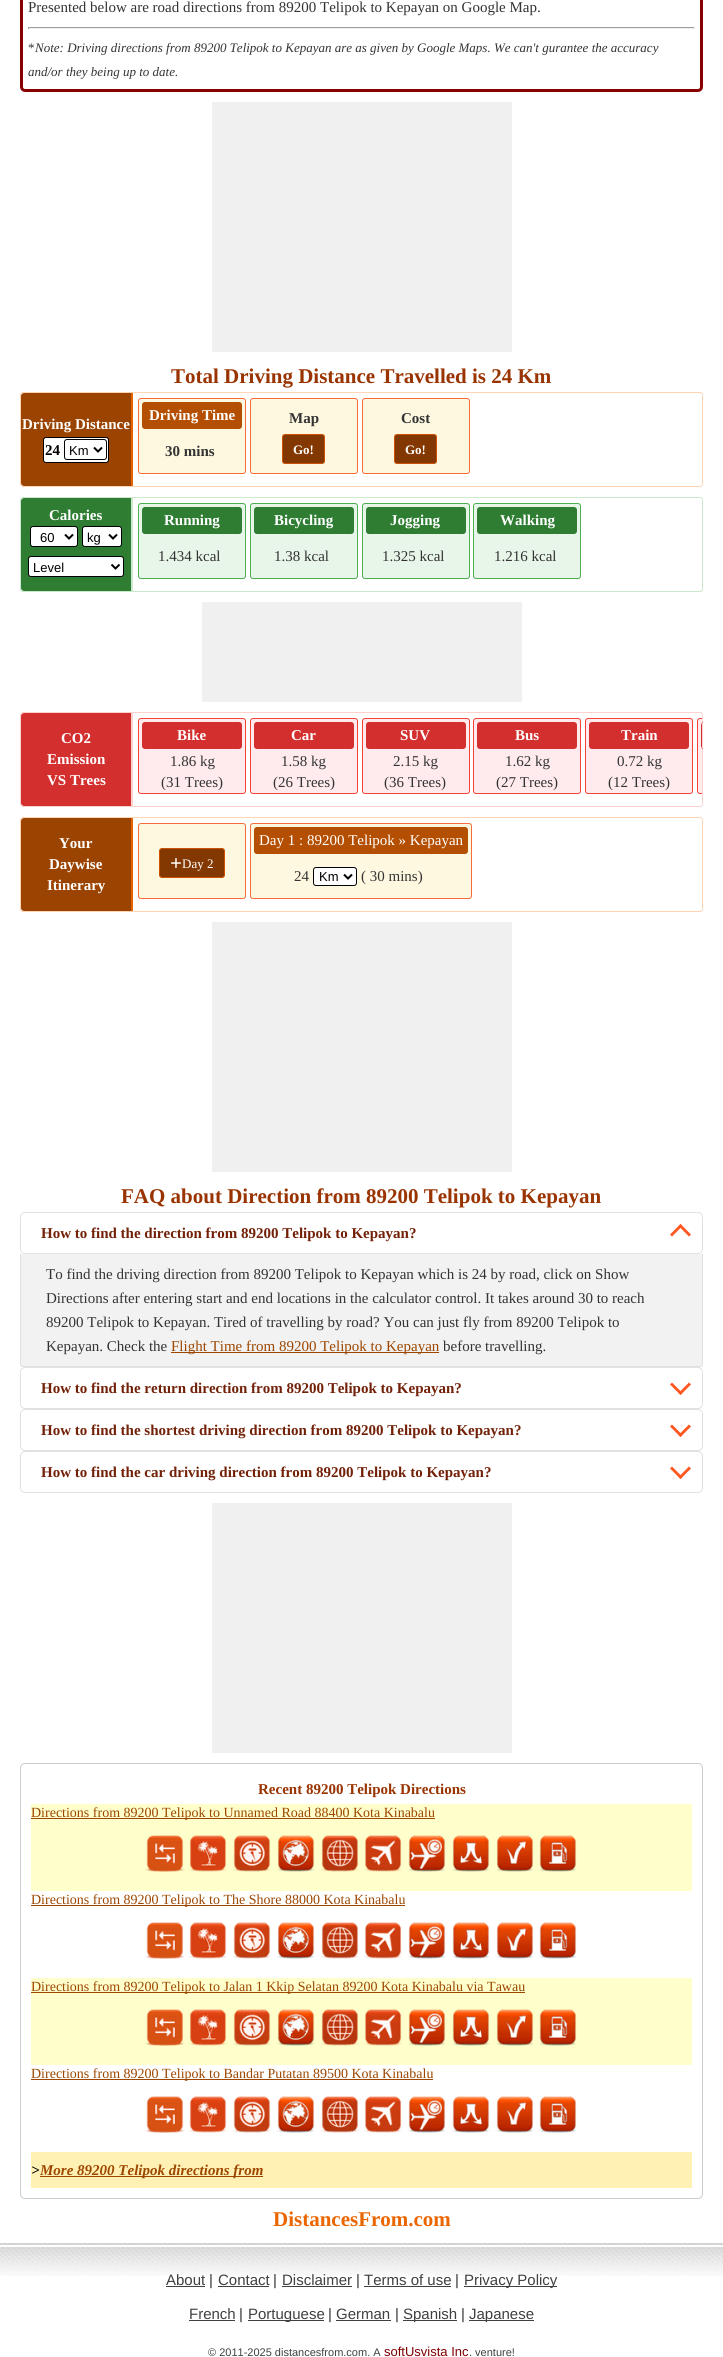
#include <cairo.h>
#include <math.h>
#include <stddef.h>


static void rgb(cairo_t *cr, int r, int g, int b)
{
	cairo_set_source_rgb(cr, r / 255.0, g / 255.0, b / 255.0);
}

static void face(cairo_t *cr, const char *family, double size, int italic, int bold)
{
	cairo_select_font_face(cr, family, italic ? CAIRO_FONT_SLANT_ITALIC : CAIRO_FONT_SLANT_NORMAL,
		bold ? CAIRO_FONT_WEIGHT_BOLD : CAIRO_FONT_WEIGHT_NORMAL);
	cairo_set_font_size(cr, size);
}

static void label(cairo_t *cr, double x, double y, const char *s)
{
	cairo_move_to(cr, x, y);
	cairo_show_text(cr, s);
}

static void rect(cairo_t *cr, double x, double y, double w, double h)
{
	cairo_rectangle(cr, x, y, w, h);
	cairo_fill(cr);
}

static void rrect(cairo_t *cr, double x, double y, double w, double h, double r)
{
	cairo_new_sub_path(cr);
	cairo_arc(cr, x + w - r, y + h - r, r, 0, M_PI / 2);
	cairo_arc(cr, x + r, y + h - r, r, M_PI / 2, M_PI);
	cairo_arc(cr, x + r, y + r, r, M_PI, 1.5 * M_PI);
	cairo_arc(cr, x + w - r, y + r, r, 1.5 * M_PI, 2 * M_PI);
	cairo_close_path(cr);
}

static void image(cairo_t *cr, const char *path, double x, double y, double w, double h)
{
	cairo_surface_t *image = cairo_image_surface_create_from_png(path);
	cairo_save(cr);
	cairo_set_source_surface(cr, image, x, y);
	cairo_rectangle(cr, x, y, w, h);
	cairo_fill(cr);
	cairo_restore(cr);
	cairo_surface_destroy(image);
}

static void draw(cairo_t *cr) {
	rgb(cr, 255, 255, 255);
	cairo_paint(cr);
	rrect(cr, 21.5, -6.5, 680, 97, 3.5);
	rgb(cr, 136, 0, 0);
	cairo_set_line_width(cr, 3);
	cairo_stroke(cr);
	face(cr, "Liberation Serif", 15, 0, 0);
	rgb(cr, 51, 51, 51);
	label(cr, 28, 12, "Presented below are road directions from 89200 Telipok to Kepayan on Google Map.");
	rgb(cr, 159, 159, 159);
	rect(cr, 28, 27, 667, 1);
	rgb(cr, 238, 238, 238);
	rect(cr, 694, 27, 1, 2);
	rect(cr, 28, 28, 667, 1);
	rgb(cr, 159, 159, 159);
	rect(cr, 28, 27, 1, 2);
	face(cr, "Liberation Serif", 13, 0, 0);
	rgb(cr, 51, 51, 51);
	label(cr, 28, 52, "*");
	face(cr, "Liberation Serif", 13, 1, 0);
	label(cr, 35, 52, "Note: Driving directions from 89200 Telipok to Kepayan are as given by Google Maps. We can't gurantee the accuracy");
	label(cr, 28, 76, "and/or they being up to date.");
	rgb(cr, 240, 240, 240);
	rect(cr, 212, 102, 300, 250);
	face(cr, "Liberation Serif", 21, 0, 1);
	rgb(cr, 153, 51, 0);
	label(cr, 171, 383, "Total Driving Distance Travelled is 24 Km");
	rrect(cr, 20.5, 392.5, 682, 94, 2.5);
	rgb(cr, 255, 212, 179);
	cairo_set_line_width(cr, 1);
	cairo_stroke(cr);
	rgb(cr, 155, 67, 0);
	cairo_new_path(cr);
	cairo_move_to(cr, 24, 393);
	cairo_line_to(cr, 131, 393);
	cairo_line_to(cr, 131, 486);
	cairo_line_to(cr, 24, 486);
	cairo_curve_to(cr, 22.5, 486, 21, 484.5, 21, 483);
	cairo_line_to(cr, 21, 396);
	cairo_curve_to(cr, 21, 394.5, 22.5, 393, 24, 393);
	cairo_close_path(cr);
	cairo_fill(cr);
	face(cr, "Liberation Serif", 15, 0, 1);
	rgb(cr, 255, 255, 255);
	label(cr, 22, 429, "Driving Distance");
	rrect(cr, 43.5, 437.5, 65, 25, 2.5);
	cairo_fill_preserve(cr);
	rgb(cr, 0, 0, 0);
	cairo_stroke(cr);
	label(cr, 45, 455, "24");
	rrect(cr, 64.5, 439.5, 42, 20, 2.5);
	cairo_stroke(cr);
	cairo_new_path(cr);
	cairo_move_to(cr, 94, 447.5);
	cairo_line_to(cr, 98, 451.5);
	cairo_line_to(cr, 102, 447.5);
	cairo_set_line_width(cr, 2);
	cairo_stroke(cr);
	face(cr, "Liberation Sans", 13, 0, 0);
	label(cr, 69, 455, "Km");
	rgb(cr, 230, 99, 0);
	rect(cr, 131, 393, 2, 93);
	rgb(cr, 255, 248, 225);
	rrect(cr, 138.5, 398.5, 107, 75, 2.5);
	cairo_fill_preserve(cr);
	rgb(cr, 247, 108, 58);
	cairo_set_line_width(cr, 1);
	cairo_stroke(cr);
	rgb(cr, 180, 78, 0);
	rrect(cr, 142, 402, 100, 27, 3);
	cairo_fill(cr);
	face(cr, "Liberation Serif", 15, 0, 1);
	rgb(cr, 255, 255, 255);
	label(cr, 149, 420, "Driving Time");
	rgb(cr, 51, 51, 51);
	label(cr, 165, 456, "30 mins");
	rgb(cr, 255, 248, 225);
	rrect(cr, 250.5, 398.5, 107, 75, 2.5);
	cairo_fill_preserve(cr);
	rgb(cr, 247, 108, 58);
	cairo_stroke(cr);
	rgb(cr, 51, 51, 51);
	label(cr, 289, 423, "Map");
	rgb(cr, 130, 56, 0);
	rrect(cr, 282.5, 434.5, 42, 29, 2.5);
	cairo_fill_preserve(cr);
	rgb(cr, 204, 82, 0);
	cairo_stroke(cr);
	face(cr, "Liberation Serif", 13, 0, 1);
	rgb(cr, 255, 255, 255);
	label(cr, 293, 454, "Go!");
	rgb(cr, 255, 248, 225);
	rrect(cr, 362.5, 398.5, 107, 75, 2.5);
	cairo_fill_preserve(cr);
	rgb(cr, 247, 108, 58);
	cairo_stroke(cr);
	face(cr, "Liberation Serif", 15, 0, 1);
	rgb(cr, 51, 51, 51);
	label(cr, 401, 423, "Cost");
	rgb(cr, 130, 56, 0);
	rrect(cr, 394.5, 434.5, 42, 29, 2.5);
	cairo_fill_preserve(cr);
	rgb(cr, 204, 82, 0);
	cairo_stroke(cr);
	face(cr, "Liberation Serif", 13, 0, 1);
	rgb(cr, 255, 255, 255);
	label(cr, 405, 454, "Go!");
	rrect(cr, 20.5, 497.5, 682, 94, 2.5);
	rgb(cr, 202, 232, 203);
	cairo_stroke(cr);
	rgb(cr, 46, 125, 50);
	cairo_new_path(cr);
	cairo_move_to(cr, 24, 498);
	cairo_line_to(cr, 131, 498);
	cairo_line_to(cr, 131, 591);
	cairo_line_to(cr, 24, 591);
	cairo_curve_to(cr, 22.5, 591, 21, 589.5, 21, 588);
	cairo_line_to(cr, 21, 501);
	cairo_curve_to(cr, 21, 499.5, 22.5, 498, 24, 498);
	cairo_close_path(cr);
	cairo_fill(cr);
	face(cr, "Liberation Serif", 15, 0, 1);
	rgb(cr, 255, 255, 255);
	label(cr, 49, 520, "Calories");
	rrect(cr, 30.5, 526.5, 47, 20, 2.5);
	cairo_fill_preserve(cr);
	rgb(cr, 0, 0, 0);
	cairo_stroke(cr);
	cairo_new_path(cr);
	cairo_move_to(cr, 65, 534.5);
	cairo_line_to(cr, 69, 538.5);
	cairo_line_to(cr, 73, 534.5);
	cairo_set_line_width(cr, 2);
	cairo_stroke(cr);
	face(cr, "Liberation Sans", 13, 0, 0);
	label(cr, 40, 542, "60");
	rgb(cr, 255, 255, 255);
	rrect(cr, 82.5, 526.5, 39, 20, 2.5);
	cairo_fill_preserve(cr);
	rgb(cr, 0, 0, 0);
	cairo_set_line_width(cr, 1);
	cairo_stroke(cr);
	cairo_new_path(cr);
	cairo_move_to(cr, 109, 534.5);
	cairo_line_to(cr, 113, 538.5);
	cairo_line_to(cr, 117, 534.5);
	cairo_set_line_width(cr, 2);
	cairo_stroke(cr);
	label(cr, 87, 542, "kg");
	rgb(cr, 255, 255, 255);
	rrect(cr, 28.5, 556.5, 95, 20, 2.5);
	cairo_fill_preserve(cr);
	rgb(cr, 0, 0, 0);
	cairo_set_line_width(cr, 1);
	cairo_stroke(cr);
	cairo_new_path(cr);
	cairo_move_to(cr, 111.5, 564.5);
	cairo_line_to(cr, 115.5, 568.5);
	cairo_line_to(cr, 119.5, 564.5);
	cairo_set_line_width(cr, 2);
	cairo_stroke(cr);
	label(cr, 33, 572, "Level");
	rgb(cr, 202, 232, 203);
	rect(cr, 131, 498, 2, 93);
	rgb(cr, 232, 245, 233);
	rrect(cr, 138.5, 503.5, 107, 75, 2.5);
	cairo_fill_preserve(cr);
	rgb(cr, 76, 175, 80);
	cairo_set_line_width(cr, 1);
	cairo_stroke(cr);
	rgb(cr, 46, 125, 50);
	rrect(cr, 142, 507, 100, 27, 3);
	cairo_fill(cr);
	face(cr, "Liberation Serif", 15, 0, 1);
	rgb(cr, 255, 255, 255);
	label(cr, 164, 525, "Running");
	face(cr, "Liberation Serif", 15, 0, 0);
	rgb(cr, 51, 51, 51);
	label(cr, 158, 561, "1.434 kcal");
	rgb(cr, 232, 245, 233);
	rrect(cr, 250.5, 503.5, 107, 75, 2.5);
	cairo_fill_preserve(cr);
	rgb(cr, 76, 175, 80);
	cairo_stroke(cr);
	rgb(cr, 46, 125, 50);
	rrect(cr, 254, 507, 100, 27, 3);
	cairo_fill(cr);
	face(cr, "Liberation Serif", 15, 0, 1);
	rgb(cr, 255, 255, 255);
	label(cr, 274, 525, "Bicycling");
	face(cr, "Liberation Serif", 15, 0, 0);
	rgb(cr, 51, 51, 51);
	label(cr, 274, 561, "1.38 kcal");
	rgb(cr, 232, 245, 233);
	rrect(cr, 362.5, 503.5, 107, 75, 2.5);
	cairo_fill_preserve(cr);
	rgb(cr, 76, 175, 80);
	cairo_stroke(cr);
	rgb(cr, 46, 125, 50);
	rrect(cr, 366, 507, 100, 27, 3);
	cairo_fill(cr);
	face(cr, "Liberation Serif", 15, 0, 1);
	rgb(cr, 255, 255, 255);
	label(cr, 390, 525, "Jogging");
	face(cr, "Liberation Serif", 15, 0, 0);
	rgb(cr, 51, 51, 51);
	label(cr, 382, 561, "1.325 kcal");
	rgb(cr, 232, 245, 233);
	rrect(cr, 473.5, 503.5, 107, 75, 2.5);
	cairo_fill_preserve(cr);
	rgb(cr, 76, 175, 80);
	cairo_stroke(cr);
	rgb(cr, 46, 125, 50);
	rrect(cr, 477, 507, 100, 27, 3);
	cairo_fill(cr);
	face(cr, "Liberation Serif", 15, 0, 1);
	rgb(cr, 255, 255, 255);
	label(cr, 500, 525, "Walking");
	face(cr, "Liberation Serif", 15, 0, 0);
	rgb(cr, 51, 51, 51);
	label(cr, 494, 561, "1.216 kcal");
	rgb(cr, 240, 240, 240);
	rect(cr, 202, 602, 320, 100);
	rrect(cr, 20.5, 712.5, 682, 94, 2.5);
	rgb(cr, 252, 210, 207);
	cairo_stroke(cr);
	rgb(cr, 211, 47, 47);
	cairo_new_path(cr);
	cairo_move_to(cr, 24, 713);
	cairo_line_to(cr, 131, 713);
	cairo_line_to(cr, 131, 806);
	cairo_line_to(cr, 24, 806);
	cairo_curve_to(cr, 22.5, 806, 21, 804.5, 21, 803);
	cairo_line_to(cr, 21, 716);
	cairo_curve_to(cr, 21, 714.5, 22.5, 713, 24, 713);
	cairo_close_path(cr);
	cairo_fill(cr);
	face(cr, "Liberation Serif", 15, 0, 1);
	rgb(cr, 255, 255, 255);
	label(cr, 61, 743, "CO2");
	label(cr, 47, 764, "Emission");
	label(cr, 47, 785, "VS Trees");
	rgb(cr, 252, 210, 207);
	rect(cr, 131, 713, 2, 93);
	rgb(cr, 255, 235, 238);
	rrect(cr, 138.5, 718.5, 107, 75, 2.5);
	cairo_fill_preserve(cr);
	rgb(cr, 244, 67, 54);
	cairo_stroke(cr);
	rgb(cr, 211, 47, 47);
	rrect(cr, 142, 722, 100, 27, 3);
	cairo_fill(cr);
	rgb(cr, 255, 255, 255);
	label(cr, 177, 740, "Bike");
	face(cr, "Liberation Serif", 15, 0, 0);
	rgb(cr, 51, 51, 51);
	label(cr, 170, 766, "1.86 kg");
	label(cr, 161, 787, "(31 Trees)");
	rgb(cr, 255, 235, 238);
	rrect(cr, 250.5, 718.5, 107, 75, 2.5);
	cairo_fill_preserve(cr);
	rgb(cr, 244, 67, 54);
	cairo_stroke(cr);
	rgb(cr, 211, 47, 47);
	rrect(cr, 254, 722, 100, 27, 3);
	cairo_fill(cr);
	face(cr, "Liberation Serif", 15, 0, 1);
	rgb(cr, 255, 255, 255);
	label(cr, 291, 740, "Car");
	face(cr, "Liberation Serif", 15, 0, 0);
	rgb(cr, 51, 51, 51);
	label(cr, 281, 766, "1.58 kg");
	label(cr, 273, 787, "(26 Trees)");
	rgb(cr, 255, 235, 238);
	rrect(cr, 362.5, 718.5, 107, 75, 2.5);
	cairo_fill_preserve(cr);
	rgb(cr, 244, 67, 54);
	cairo_stroke(cr);
	rgb(cr, 211, 47, 47);
	rrect(cr, 366, 722, 100, 27, 3);
	cairo_fill(cr);
	face(cr, "Liberation Serif", 15, 0, 1);
	rgb(cr, 255, 255, 255);
	label(cr, 400, 740, "SUV");
	face(cr, "Liberation Serif", 15, 0, 0);
	rgb(cr, 51, 51, 51);
	label(cr, 393, 766, "2.15 kg");
	label(cr, 384, 787, "(36 Trees)");
	rgb(cr, 255, 235, 238);
	rrect(cr, 473.5, 718.5, 107, 75, 2.5);
	cairo_fill_preserve(cr);
	rgb(cr, 244, 67, 54);
	cairo_stroke(cr);
	rgb(cr, 211, 47, 47);
	rrect(cr, 477, 722, 100, 27, 3);
	cairo_fill(cr);
	face(cr, "Liberation Serif", 15, 0, 1);
	rgb(cr, 255, 255, 255);
	label(cr, 515, 740, "Bus");
	face(cr, "Liberation Serif", 15, 0, 0);
	rgb(cr, 51, 51, 51);
	label(cr, 505, 766, "1.62 kg");
	label(cr, 496, 787, "(27 Trees)");
	rgb(cr, 255, 235, 238);
	rrect(cr, 585.5, 718.5, 107, 75, 2.5);
	cairo_fill_preserve(cr);
	rgb(cr, 244, 67, 54);
	cairo_stroke(cr);
	rgb(cr, 211, 47, 47);
	rrect(cr, 589, 722, 100, 27, 3);
	cairo_fill(cr);
	face(cr, "Liberation Serif", 15, 0, 1);
	rgb(cr, 255, 255, 255);
	label(cr, 621, 740, "Train");
	face(cr, "Liberation Serif", 15, 0, 0);
	rgb(cr, 51, 51, 51);
	label(cr, 617, 766, "0.72 kg");
	label(cr, 608, 787, "(12 Trees)");
	rgb(cr, 255, 235, 238);
	cairo_new_path(cr);
	cairo_move_to(cr, 700, 718);
	cairo_line_to(cr, 702, 718);
	cairo_line_to(cr, 702, 794);
	cairo_line_to(cr, 700, 794);
	cairo_curve_to(cr, 698.5, 794, 697, 792.5, 697, 791);
	cairo_line_to(cr, 697, 721);
	cairo_curve_to(cr, 697, 719.5, 698.5, 718, 700, 718);
	cairo_close_path(cr);
	cairo_fill(cr);
	cairo_save(cr);
	cairo_rectangle(cr, 138, 713, 564, 83);
	cairo_clip(cr);
	rrect(cr, 697.5, 718.5, 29, 75, 2.5);
	rgb(cr, 244, 67, 54);
	cairo_stroke(cr);
	cairo_restore(cr);
	rgb(cr, 211, 47, 47);
	cairo_new_path(cr);
	cairo_move_to(cr, 704, 722);
	cairo_line_to(cr, 702, 722);
	cairo_line_to(cr, 702, 749);
	cairo_line_to(cr, 704, 749);
	cairo_curve_to(cr, 702.5, 749, 701, 747.5, 701, 746);
	cairo_line_to(cr, 701, 725);
	cairo_curve_to(cr, 701, 723.5, 702.5, 722, 704, 722);
	cairo_close_path(cr);
	cairo_fill(cr);
	rrect(cr, 20.5, 817.5, 682, 94, 2.5);
	rgb(cr, 255, 212, 179);
	cairo_stroke(cr);
	rgb(cr, 155, 67, 0);
	cairo_new_path(cr);
	cairo_move_to(cr, 24, 818);
	cairo_line_to(cr, 131, 818);
	cairo_line_to(cr, 131, 911);
	cairo_line_to(cr, 24, 911);
	cairo_curve_to(cr, 22.5, 911, 21, 909.5, 21, 908);
	cairo_line_to(cr, 21, 821);
	cairo_curve_to(cr, 21, 819.5, 22.5, 818, 24, 818);
	cairo_close_path(cr);
	cairo_fill(cr);
	face(cr, "Liberation Serif", 15, 0, 1);
	rgb(cr, 255, 255, 255);
	label(cr, 59, 848, "Your");
	label(cr, 49, 869, "Daywise");
	label(cr, 47, 890, "Itinerary");
	rgb(cr, 230, 99, 0);
	rect(cr, 131, 818, 2, 93);
	rgb(cr, 255, 248, 225);
	rrect(cr, 138.5, 823.5, 107, 75, 2.5);
	cairo_fill_preserve(cr);
	rgb(cr, 247, 108, 58);
	cairo_stroke(cr);
	rgb(cr, 130, 56, 0);
	rrect(cr, 159.5, 848.5, 65, 29, 2.5);
	cairo_fill_preserve(cr);
	rgb(cr, 204, 82, 0);
	cairo_stroke(cr);
	face(cr, "Liberation Serif", 21, 0, 1);
	rgb(cr, 255, 255, 255);
	label(cr, 170, 870, "+");
	face(cr, "Liberation Serif", 13, 0, 0);
	label(cr, 182, 868, "Day 2");
	rgb(cr, 255, 248, 225);
	rrect(cr, 250.5, 823.5, 221, 75, 2.5);
	cairo_fill_preserve(cr);
	rgb(cr, 247, 108, 58);
	cairo_stroke(cr);
	rgb(cr, 180, 78, 0);
	rrect(cr, 254, 827, 214, 27, 3);
	cairo_fill(cr);
	face(cr, "Liberation Serif", 15, 0, 0);
	rgb(cr, 255, 255, 255);
	label(cr, 259, 845, "Day 1 : 89200 Telipok » Kepayan");
	rgb(cr, 51, 51, 51);
	label(cr, 294, 881, "24");
	rgb(cr, 255, 255, 255);
	rrect(cr, 313.5, 867.5, 43, 18, 2.5);
	cairo_fill_preserve(cr);
	rgb(cr, 0, 0, 0);
	cairo_stroke(cr);
	cairo_new_path(cr);
	cairo_move_to(cr, 344, 874.5);
	cairo_line_to(cr, 348, 878.5);
	cairo_line_to(cr, 352, 874.5);
	cairo_set_line_width(cr, 2);
	cairo_stroke(cr);
	face(cr, "Liberation Sans", 13, 0, 0);
	label(cr, 319, 881, "Km");
	face(cr, "Liberation Serif", 15, 0, 0);
	rgb(cr, 51, 51, 51);
	label(cr, 361, 881, "( 30 mins)");
	rgb(cr, 240, 240, 240);
	rect(cr, 212, 922, 300, 250);
	face(cr, "Liberation Serif", 21, 0, 1);
	rgb(cr, 153, 51, 0);
	label(cr, 121, 1203, "FAQ about Direction from 89200 Telipok to Kepayan");
	rrect(cr, 20.5, 1212.5, 682, 41, 4.5);
	rgb(cr, 225, 225, 225);
	cairo_set_line_width(cr, 1);
	cairo_stroke(cr);
	face(cr, "Liberation Serif", 15, 0, 1);
	rgb(cr, 114, 33, 8);
	label(cr, 41, 1238, "How to find the direction from 89200 Telipok to Kepayan?");
	rgb(cr, 255, 87, 34);
	cairo_new_path(cr);
	cairo_move_to(cr, 672, 1236.5);
	cairo_line_to(cr, 670, 1234.5);
	cairo_line_to(cr, 680.5, 1224);
	cairo_line_to(cr, 682.5, 1226);
	cairo_close_path(cr);
	cairo_fill(cr);
	cairo_new_path(cr);
	cairo_move_to(cr, 689, 1236.5);
	cairo_line_to(cr, 678.5, 1226);
	cairo_line_to(cr, 680.5, 1224);
	cairo_line_to(cr, 691, 1234.5);
	cairo_close_path(cr);
	cairo_fill(cr);
	rgb(cr, 242, 242, 242);
	cairo_new_path(cr);
	cairo_move_to(cr, 20, 1254);
	cairo_line_to(cr, 703, 1254);
	cairo_line_to(cr, 703, 1364);
	cairo_curve_to(cr, 703, 1365.5, 701.5, 1367, 700, 1367);
	cairo_line_to(cr, 23, 1367);
	cairo_curve_to(cr, 21.5, 1367, 20, 1365.5, 20, 1364);
	cairo_close_path(cr);
	cairo_fill(cr);
	rgb(cr, 225, 225, 225);
	cairo_set_fill_rule(cr, CAIRO_FILL_RULE_EVEN_ODD);
	cairo_new_path(cr);
	cairo_move_to(cr, 20, 1254);
	cairo_line_to(cr, 703, 1254);
	cairo_line_to(cr, 703, 1364);
	cairo_curve_to(cr, 703, 1366, 702, 1367, 700, 1367);
	cairo_line_to(cr, 23, 1367);
	cairo_curve_to(cr, 21, 1367, 20, 1366, 20, 1364);
	cairo_close_path(cr);
	cairo_move_to(cr, 21, 1254);
	cairo_line_to(cr, 702, 1254);
	cairo_line_to(cr, 702, 1364);
	cairo_curve_to(cr, 702, 1365, 701, 1366, 700, 1366);
	cairo_line_to(cr, 23, 1366);
	cairo_curve_to(cr, 22, 1366, 21, 1365, 21, 1364);
	cairo_close_path(cr);
	cairo_fill(cr);
	face(cr, "Liberation Serif", 15, 0, 0);
	rgb(cr, 51, 51, 51);
	label(cr, 46, 1279, "To find the driving direction from 89200 Telipok to Kepayan which is 24 by road, click on Show");
	label(cr, 46, 1303, "Directions after entering start and end locations in the calculator control. It takes around 30 to reach");
	label(cr, 46, 1327, "89200 Telipok to Kepayan. Tired of travelling by road? You can just fly from 89200 Telipok to");
	label(cr, 46, 1351, "Kepayan. Check the");
	rgb(cr, 156, 70, 0);
	rect(cr, 171, 1352, 268, 1);
	label(cr, 171, 1351, "Flight Time from 89200 Telipok to Kepayan");
	rgb(cr, 51, 51, 51);
	label(cr, 443, 1351, "before travelling.");
	rrect(cr, 20.5, 1367.5, 682, 41, 4.5);
	rgb(cr, 225, 225, 225);
	cairo_stroke(cr);
	face(cr, "Liberation Serif", 15, 0, 1);
	rgb(cr, 114, 33, 8);
	label(cr, 41, 1393, "How to find the return direction from 89200 Telipok to Kepayan?");
	rgb(cr, 255, 87, 34);
	cairo_set_fill_rule(cr, CAIRO_FILL_RULE_WINDING);
	cairo_new_path(cr);
	cairo_move_to(cr, 689, 1382.5);
	cairo_line_to(cr, 691, 1384.5);
	cairo_line_to(cr, 680.5, 1395);
	cairo_line_to(cr, 678.5, 1393);
	cairo_close_path(cr);
	cairo_fill(cr);
	rrect(cr, 20.5, 1409.5, 682, 41, 4.5);
	rgb(cr, 225, 225, 225);
	cairo_stroke(cr);
	rgb(cr, 255, 87, 34);
	cairo_new_path(cr);
	cairo_move_to(cr, 672, 1382.5);
	cairo_line_to(cr, 682.5, 1393);
	cairo_line_to(cr, 680.5, 1395);
	cairo_line_to(cr, 670, 1384.5);
	cairo_close_path(cr);
	cairo_move_to(cr, 689, 1424.5);
	cairo_line_to(cr, 691, 1426.5);
	cairo_line_to(cr, 680.5, 1437);
	cairo_line_to(cr, 678.5, 1435);
	cairo_close_path(cr);
	cairo_fill(cr);
	rgb(cr, 114, 33, 8);
	label(cr, 41, 1435, "How to find the shortest driving direction from 89200 Telipok to Kepayan?");
	rrect(cr, 20.5, 1451.5, 682, 41, 4.5);
	rgb(cr, 225, 225, 225);
	cairo_stroke(cr);
	rgb(cr, 255, 87, 34);
	cairo_new_path(cr);
	cairo_move_to(cr, 672, 1424.5);
	cairo_line_to(cr, 682.5, 1435);
	cairo_line_to(cr, 680.5, 1437);
	cairo_line_to(cr, 670, 1426.5);
	cairo_close_path(cr);
	cairo_move_to(cr, 689, 1466.5);
	cairo_line_to(cr, 691, 1468.5);
	cairo_line_to(cr, 680.5, 1479);
	cairo_line_to(cr, 678.5, 1477);
	cairo_close_path(cr);
	cairo_fill(cr);
	rgb(cr, 114, 33, 8);
	label(cr, 41, 1477, "How to find the car driving direction from 89200 Telipok to Kepayan?");
	rgb(cr, 255, 87, 34);
	cairo_new_path(cr);
	cairo_move_to(cr, 672, 1466.5);
	cairo_line_to(cr, 682.5, 1477);
	cairo_line_to(cr, 680.5, 1479);
	cairo_line_to(cr, 670, 1468.5);
	cairo_close_path(cr);
	cairo_fill(cr);
	rgb(cr, 240, 240, 240);
	rect(cr, 212, 1503, 300, 250);
	rrect(cr, 20.5, 1763.5, 682, 435, 4.5);
	rgb(cr, 204, 204, 204);
	cairo_stroke(cr);
	rgb(cr, 153, 51, 0);
	label(cr, 258, 1794, "Recent 89200 Telipok Directions");
	rgb(cr, 255, 255, 204);
	rect(cr, 31, 1804, 661, 87);
	rgb(cr, 156, 70, 0);
	rect(cr, 31, 1818, 404, 1);
	face(cr, "Liberation Serif", 14, 0, 0);
	label(cr, 31, 1817, "Directions from 89200 Telipok to Unnamed Road 88400 Kota Kinabalu");
	image(cr, "image0.png", 145, 1835, 40, 37);
	image(cr, "image1.png", 189, 1835, 38, 37);
	image(cr, "image2.png", 233, 1835, 38, 37);
	image(cr, "image3.png", 276, 1835, 39, 39);
	image(cr, "image4.png", 321, 1835, 38, 37);
	image(cr, "image5.png", 364, 1835, 38, 37);
	image(cr, "image6.png", 408, 1835, 38, 39);
	image(cr, "image7.png", 452, 1835, 38, 39);
	image(cr, "image8.png", 495, 1835, 39, 39);
	image(cr, "image9.png", 538, 1835, 39, 39);
	rect(cr, 31, 1905, 374, 1);
	label(cr, 31, 1904, "Directions from 89200 Telipok to The Shore 88000 Kota Kinabalu");
	image(cr, "image10.png", 145, 1922, 40, 37);
	image(cr, "image11.png", 189, 1922, 38, 37);
	image(cr, "image12.png", 233, 1922, 38, 37);
	image(cr, "image13.png", 276, 1922, 39, 39);
	image(cr, "image14.png", 321, 1922, 38, 37);
	image(cr, "image15.png", 364, 1922, 38, 37);
	image(cr, "image16.png", 408, 1922, 38, 39);
	image(cr, "image17.png", 452, 1922, 38, 39);
	image(cr, "image18.png", 495, 1922, 39, 39);
	image(cr, "image19.png", 538, 1922, 39, 39);
	rgb(cr, 255, 255, 204);
	rect(cr, 31, 1978, 661, 87);
	rgb(cr, 156, 70, 0);
	rect(cr, 31, 1992, 494, 1);
	label(cr, 31, 1991, "Directions from 89200 Telipok to Jalan 1 Kkip Selatan 89200 Kota Kinabalu via Tawau");
	image(cr, "image0.png", 145, 2009, 40, 37);
	image(cr, "image1.png", 189, 2009, 38, 37);
	image(cr, "image2.png", 233, 2009, 38, 37);
	image(cr, "image3.png", 276, 2009, 39, 39);
	image(cr, "image4.png", 321, 2009, 38, 37);
	image(cr, "image5.png", 364, 2009, 38, 37);
	image(cr, "image6.png", 408, 2009, 38, 39);
	image(cr, "image7.png", 452, 2009, 38, 39);
	image(cr, "image8.png", 495, 2009, 39, 39);
	image(cr, "image9.png", 538, 2009, 39, 39);
	rect(cr, 31, 2079, 402, 1);
	label(cr, 31, 2078, "Directions from 89200 Telipok to Bandar Putatan 89500 Kota Kinabalu");
	image(cr, "image10.png", 145, 2096, 40, 37);
	image(cr, "image11.png", 189, 2096, 38, 37);
	image(cr, "image12.png", 233, 2096, 38, 37);
	image(cr, "image13.png", 276, 2096, 39, 39);
	image(cr, "image14.png", 321, 2096, 38, 37);
	image(cr, "image15.png", 364, 2096, 38, 37);
	image(cr, "image16.png", 408, 2096, 38, 39);
	image(cr, "image17.png", 452, 2096, 38, 39);
	image(cr, "image18.png", 495, 2096, 39, 39);
	image(cr, "image19.png", 538, 2096, 39, 39);
	rgb(cr, 255, 240, 179);
	rect(cr, 31, 2152, 661, 36);
	face(cr, "Liberation Serif", 15, 1, 1);
	rgb(cr, 0, 0, 0);
	label(cr, 31, 2175, ">");
	rgb(cr, 156, 70, 0);
	rect(cr, 40, 2176, 223, 1);
	label(cr, 40, 2175, "More 89200 Telipok directions from");
	face(cr, "Liberation Serif", 21, 0, 1);
	rgb(cr, 235, 101, 0);
	label(cr, 273, 2226, "DistancesFrom.com");
	image(cr, "image20.png", 0, 2243, 723, 33);
	face(cr, "Liberation Sans", 15, 0, 0);
	rgb(cr, 64, 64, 64);
	label(cr, 166, 2285, "About");
	rect(cr, 166, 2286, 39, 1);
	rgb(cr, 51, 51, 51);
	label(cr, 209, 2285, "|");
	rgb(cr, 64, 64, 64);
	label(cr, 218, 2285, "Contact");
	rect(cr, 218, 2286, 51, 1);
	rgb(cr, 51, 51, 51);
	label(cr, 273, 2285, "|");
	rgb(cr, 64, 64, 64);
	label(cr, 282, 2285, "Disclaimer");
	rect(cr, 282, 2286, 70, 1);
	rgb(cr, 51, 51, 51);
	label(cr, 356, 2285, "|");
	rgb(cr, 64, 64, 64);
	label(cr, 364, 2285, "Terms of use");
	rect(cr, 364, 2286, 87, 1);
	rgb(cr, 51, 51, 51);
	label(cr, 455, 2285, "|");
	rgb(cr, 64, 64, 64);
	rect(cr, 464, 2286, 93, 1);
	label(cr, 464, 2285, "Privacy Policy");
	label(cr, 189, 2319, "French");
	rect(cr, 189, 2320, 46, 1);
	rgb(cr, 51, 51, 51);
	label(cr, 239, 2319, "|");
	rgb(cr, 64, 64, 64);
	rect(cr, 248, 2320, 76, 1);
	label(cr, 248, 2319, "Portuguese");
	rgb(cr, 51, 51, 51);
	label(cr, 328, 2319, "|");
	rgb(cr, 64, 64, 64);
	label(cr, 336, 2319, "German");
	rect(cr, 336, 2320, 55, 1);
	rgb(cr, 51, 51, 51);
	label(cr, 395, 2319, "|");
	rgb(cr, 64, 64, 64);
	rect(cr, 403, 2320, 54, 1);
	label(cr, 403, 2319, "Spanish");
	rgb(cr, 51, 51, 51);
	label(cr, 461, 2319, "|");
	rgb(cr, 64, 64, 64);
	rect(cr, 469, 2320, 65, 1);
	label(cr, 469, 2319, "Japanese");
	face(cr, "Liberation Sans", 11, 0, 0);
	label(cr, 208, 2356, "© 2011-2025 distancesfrom.com. A");
	face(cr, "Liberation Sans", 13, 0, 0);
	rgb(cr, 128, 0, 0);
	label(cr, 384, 2356, "softUsvista Inc");
	face(cr, "Liberation Sans", 11, 0, 0);
	rgb(cr, 64, 64, 64);
	label(cr, 469, 2356, ". venture!");
}

int main(void) {
	cairo_surface_t *surface = cairo_image_surface_create(CAIRO_FORMAT_RGB24, 723, 2357);
	cairo_t *cr = cairo_create(surface);
	cairo_font_options_t *options = cairo_font_options_create();
	cairo_font_options_set_hint_metrics(options, CAIRO_HINT_METRICS_OFF);
	cairo_font_options_set_hint_style(options, CAIRO_HINT_STYLE_NONE);
	cairo_set_font_options(cr, options);
	cairo_set_miter_limit(cr, 4);
	draw(cr);
	cairo_surface_write_to_png(surface, "render.png");
	cairo_font_options_destroy(options);
	cairo_destroy(cr);
	cairo_surface_destroy(surface);
	return 0;
}
